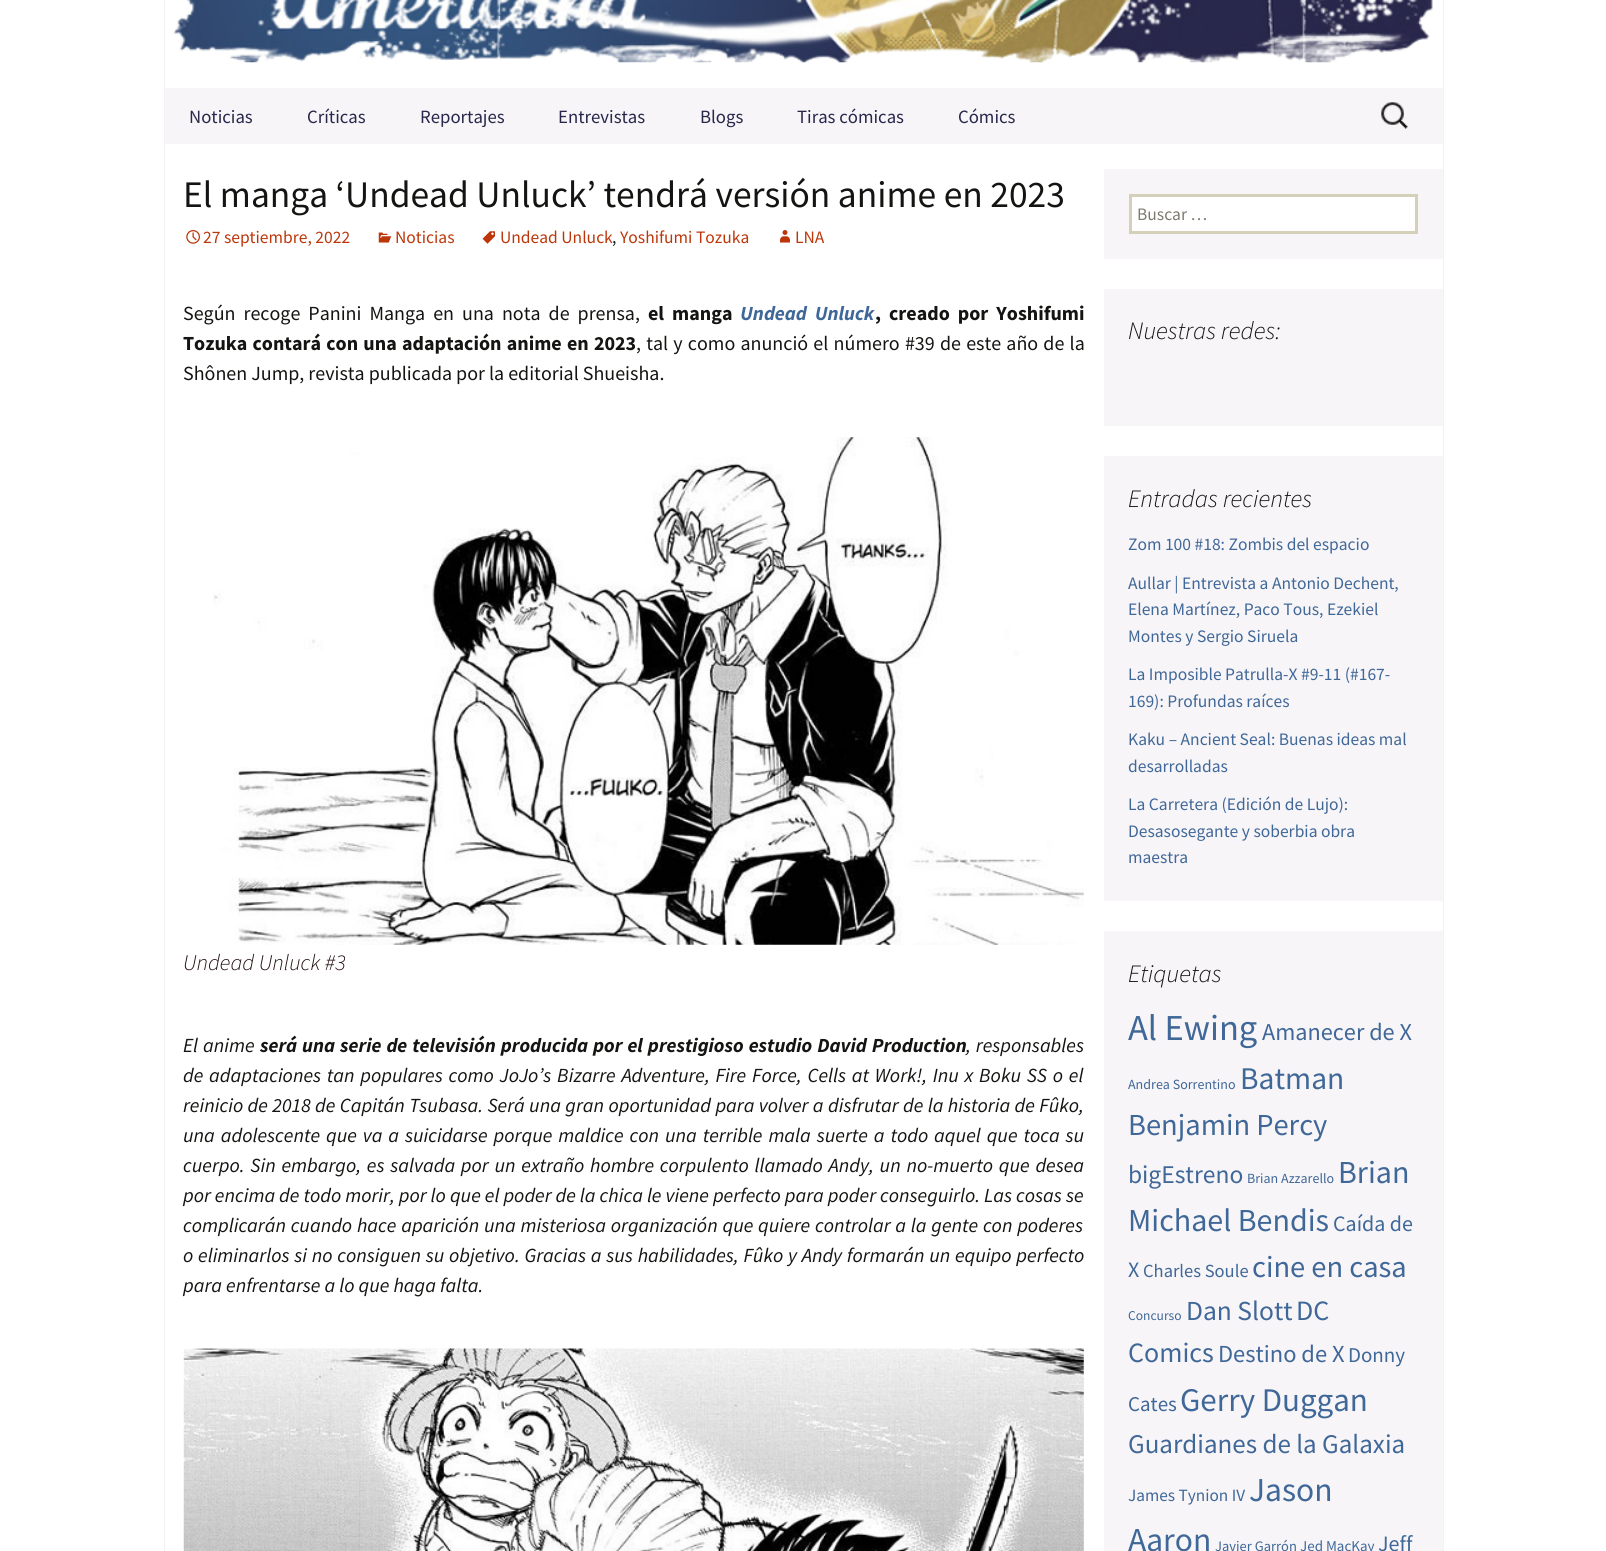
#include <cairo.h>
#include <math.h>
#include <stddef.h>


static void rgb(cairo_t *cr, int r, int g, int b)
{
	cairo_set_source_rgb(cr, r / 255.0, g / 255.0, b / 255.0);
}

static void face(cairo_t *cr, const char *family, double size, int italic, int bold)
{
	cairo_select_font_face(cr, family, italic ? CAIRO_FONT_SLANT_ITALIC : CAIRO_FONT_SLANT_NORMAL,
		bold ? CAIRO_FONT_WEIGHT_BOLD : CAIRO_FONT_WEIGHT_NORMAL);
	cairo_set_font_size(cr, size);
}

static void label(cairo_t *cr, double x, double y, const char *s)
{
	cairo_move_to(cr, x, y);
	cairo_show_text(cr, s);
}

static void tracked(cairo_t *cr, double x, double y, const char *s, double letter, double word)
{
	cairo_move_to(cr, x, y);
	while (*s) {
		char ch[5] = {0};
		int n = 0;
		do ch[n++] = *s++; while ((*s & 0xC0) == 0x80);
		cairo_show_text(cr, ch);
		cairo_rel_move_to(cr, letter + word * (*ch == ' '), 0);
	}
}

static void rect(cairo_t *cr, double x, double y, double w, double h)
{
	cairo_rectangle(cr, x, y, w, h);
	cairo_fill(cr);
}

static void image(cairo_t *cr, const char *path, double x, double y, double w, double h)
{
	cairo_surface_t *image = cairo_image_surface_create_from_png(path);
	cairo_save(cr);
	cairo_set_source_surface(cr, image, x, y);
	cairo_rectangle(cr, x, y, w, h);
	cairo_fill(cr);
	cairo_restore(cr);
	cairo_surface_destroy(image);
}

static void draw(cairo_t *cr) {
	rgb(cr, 255, 255, 255);
	cairo_paint(cr);
	rgb(cr, 242, 242, 242);
	rect(cr, 1443, 0, 1, 1551);
	rect(cr, 164, 0, 1, 1551);
	image(cr, "image0.png", 173, 0, 1260, 63);
	rgb(cr, 247, 245, 247);
	rect(cr, 165, 88, 1278, 56);
	face(cr, "Source Sans Pro", 18.75, 0, 0);
	rgb(cr, 39, 39, 75);
	label(cr, 189, 123, "Noticias");
	label(cr, 307, 123, "Críticas");
	label(cr, 420, 123, "Reportajes");
	label(cr, 558, 123, "Entrevistas");
	label(cr, 700, 123, "Blogs");
	label(cr, 797, 123, "Tiras cómicas");
	label(cr, 958, 123, "Cómics");
	image(cr, "image1.png", 1381, 102, 27, 27);
	face(cr, "Source Sans Pro", 37.5, 0, 0);
	rgb(cr, 20, 20, 18);
	label(cr, 183, 207, "El manga ‘Undead Unluck’ tendrá versión anime en 2023");
	image(cr, "image2.png", 186, 230, 14, 14);
	face(cr, "Source Sans Pro", 17.5, 0, 0);
	rgb(cr, 188, 54, 10);
	label(cr, 203, 243, "27 septiembre, 2022");
	image(cr, "image3.png", 378, 232, 14, 11);
	label(cr, 395, 243, "Noticias");
	image(cr, "image4.png", 482, 231, 13, 13);
	label(cr, 500, 243, "Undead Unluck");
	rgb(cr, 20, 20, 18);
	label(cr, 612, 243, ",");
	rgb(cr, 188, 54, 10);
	label(cr, 620, 243, "Yoshifumi Tozuka");
	image(cr, "image5.png", 780, 230, 10, 13);
	label(cr, 795, 243, "LNA");
	face(cr, "Source Sans Pro", 20, 0, 0);
	rgb(cr, 20, 20, 18);
	tracked(cr, 183, 320, "Según recoge Panini Manga en una nota de prensa,", 0, 4);
	face(cr, "Source Sans Pro", 20, 0, 1);
	tracked(cr, 648, 320, "el manga", 0, 4);
	face(cr, "Source Sans Pro", 20, 1, 1);
	rgb(cr, 63, 103, 152);
	tracked(cr, 740, 320, "Undead Unluck", 0, 4);
	face(cr, "Source Sans Pro", 20, 0, 1);
	rgb(cr, 20, 20, 18);
	tracked(cr, 875, 320, ", creado por Yoshifumi", 0, 4);
	tracked(cr, 183, 350, "Tozuka contará con una adaptación anime en 2023", 0, 1.2);
	face(cr, "Source Sans Pro", 20, 0, 0);
	tracked(cr, 636, 350, ", tal y como anunció el número #39 de este año de la", 0, 1.2);
	label(cr, 183, 380, "Shônen Jump, revista publicada por la editorial Shueisha.");
	image(cr, "image6.png", 213, 437, 871, 508);
	face(cr, "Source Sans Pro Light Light", 22.5, 1, 0);
	rgb(cr, 34, 14, 16);
	label(cr, 183, 970, "Undead Unluck #3");
	face(cr, "Source Sans Pro", 20, 1, 0);
	rgb(cr, 20, 20, 18);
	tracked(cr, 183, 1052, "El anime", 0, 1);
	face(cr, "Source Sans Pro", 20, 1, 1);
	tracked(cr, 260, 1052, "será una serie de televisión producida por el prestigioso estudio David Production", 0, 1);
	face(cr, "Source Sans Pro", 20, 1, 0);
	tracked(cr, 966, 1052, ", responsables", 0, 1);
	tracked(cr, 183, 1082, "de adaptaciones tan populares como JoJo’s Bizarre Adventure, Fire Force, Cells at Work!, Inu x Boku SS o el", 0, 1.75);
	tracked(cr, 183, 1112, "reinicio de 2018 de Capitán Tsubasa. Será una gran oportunidad para volver a disfrutar de la historia de Fûko,", 0, 0.4);
	tracked(cr, 183, 1142, "una adolescente que va a suicidarse porque maldice con una terrible mala suerte a todo aquel que toca su", 0, 1.9);
	tracked(cr, 183, 1172, "cuerpo. Sin embargo, es salvada por un extraño hombre corpulento llamado Andy, un no-muerto que desea", 0, 1.75);
	label(cr, 183, 1202, "por encima de todo morir, por lo que el poder de la chica le viene perfecto para poder conseguirlo. Las cosas se");
	tracked(cr, 183, 1232, "complicarán cuando hace aparición una misteriosa organización que quiere controlar a la gente con poderes", 0, 0.75);
	tracked(cr, 183, 1262, "o eliminarlos si no consiguen su objetivo. Gracias a sus habilidades, Fûko y Andy formarán un equipo perfecto", 0, 0.75);
	label(cr, 183, 1292, "para enfrentarse a lo que haga falta.");
	image(cr, "image7.png", 183, 1348, 901, 203);
	rgb(cr, 247, 245, 247);
	rect(cr, 1104, 169, 339, 90);
	rgb(cr, 255, 255, 255);
	cairo_rectangle(cr, 1130.5, 195.5, 286, 37);
	cairo_fill_preserve(cr);
	rgb(cr, 212, 208, 186);
	cairo_set_line_width(cr, 3);
	cairo_stroke(cr);
	face(cr, "Source Sans Pro", 17.5, 0, 0);
	rgb(cr, 125, 123, 109);
	label(cr, 1137, 220, "Buscar …");
	rgb(cr, 247, 245, 247);
	rect(cr, 1104, 289, 339, 137);
	face(cr, "Source Sans Pro Light Light", 25, 1, 0);
	rgb(cr, 20, 20, 18);
	label(cr, 1128, 339, "Nuestras redes:");
	rgb(cr, 247, 245, 247);
	rect(cr, 1104, 456, 339, 445);
	rgb(cr, 20, 20, 18);
	label(cr, 1128, 507, "Entradas recientes");
	face(cr, "Source Sans Pro", 17.5, 0, 0);
	rgb(cr, 63, 103, 152);
	label(cr, 1128, 550, "Zom 100 #18: Zombis del espacio");
	label(cr, 1128, 589, "Aullar | Entrevista a Antonio Dechent,");
	label(cr, 1128, 615, "Elena Martínez, Paco Tous, Ezekiel");
	label(cr, 1128, 642, "Montes y Sergio Siruela");
	label(cr, 1128, 680, "La Imposible Patrulla-X #9-11 (#167-");
	label(cr, 1128, 707, "169): Profundas raíces");
	label(cr, 1128, 745, "Kaku – Ancient Seal: Buenas ideas mal");
	label(cr, 1128, 772, "desarrolladas");
	label(cr, 1128, 810, "La Carretera (Edición de Lujo):");
	label(cr, 1128, 837, "Desasosegante y soberbia obra");
	label(cr, 1128, 863, "maestra");
	rgb(cr, 247, 245, 247);
	rect(cr, 1104, 931, 339, 620);
	face(cr, "Source Sans Pro Light Light", 25, 1, 0);
	rgb(cr, 20, 20, 18);
	label(cr, 1128, 982, "Etiquetas");
	face(cr, "Source Sans Pro", 36.5, 0, 0);
	rgb(cr, 63, 103, 152);
	label(cr, 1128, 1040, "Al Ewing");
	face(cr, "Source Sans Pro", 24.25, 0, 0);
	label(cr, 1262, 1040, "Amanecer de X");
	face(cr, "Source Sans Pro", 14, 0, 0);
	label(cr, 1128, 1089, "Andrea Sorrentino");
	face(cr, "Source Sans Pro", 31.5, 0, 0);
	label(cr, 1240, 1089, "Batman");
	face(cr, "Source Sans Pro", 30.5, 0, 0);
	label(cr, 1128, 1135, "Benjamin Percy");
	face(cr, "Source Sans Pro", 25.5, 0, 0);
	label(cr, 1128, 1183, "bigEstreno");
	face(cr, "Source Sans Pro", 14, 0, 0);
	label(cr, 1247, 1183, "Brian Azzarello");
	face(cr, "Source Sans Pro", 32, 0, 0);
	label(cr, 1338, 1183, "Brian");
	label(cr, 1128, 1231, "Michael Bendis");
	face(cr, "Source Sans Pro", 22, 0, 0);
	label(cr, 1333, 1231, "Caída de");
	label(cr, 1128, 1277, "X");
	face(cr, "Source Sans Pro", 18.5, 0, 0);
	label(cr, 1143, 1277, "Charles Soule");
	face(cr, "Source Sans Pro", 30.5, 0, 0);
	label(cr, 1252, 1277, "cine en casa");
	face(cr, "Source Sans Pro", 13.5, 0, 0);
	label(cr, 1128, 1320, "Concurso");
	face(cr, "Source Sans Pro", 27.5, 0, 0);
	label(cr, 1186, 1320, "Dan Slott");
	face(cr, "Source Sans Pro", 28, 0, 0);
	label(cr, 1296, 1320, "DC");
	label(cr, 1128, 1362, "Comics");
	face(cr, "Source Sans Pro", 24.5, 0, 0);
	label(cr, 1218, 1362, "Destino de X");
	face(cr, "Source Sans Pro", 21, 0, 0);
	label(cr, 1348, 1362, "Donny");
	label(cr, 1128, 1411, "Cates");
	face(cr, "Source Sans Pro", 33, 0, 0);
	label(cr, 1180, 1411, "Gerry Duggan");
	face(cr, "Source Sans Pro", 27, 0, 0);
	label(cr, 1128, 1453, "Guardianes de la Galaxia");
	face(cr, "Source Sans Pro", 17.25, 0, 0);
	label(cr, 1128, 1501, "James Tynion IV");
	face(cr, "Source Sans Pro", 33.5, 0, 0);
	label(cr, 1249, 1501, "Jason");
	label(cr, 1128, 1551, "Aaron");
	face(cr, "Source Sans Pro", 14.5, 0, 0);
	label(cr, 1215, 1551, "Javier Garrón");
	face(cr, "Source Sans Pro", 15, 0, 0);
	label(cr, 1300, 1551, "Jed MacKay");
	face(cr, "Source Sans Pro", 22, 0, 0);
	label(cr, 1378, 1551, "Jeff");
}

int main(void) {
	cairo_surface_t *surface = cairo_image_surface_create(CAIRO_FORMAT_RGB24, 1606, 1551);
	cairo_t *cr = cairo_create(surface);
	cairo_font_options_t *options = cairo_font_options_create();
	cairo_font_options_set_hint_metrics(options, CAIRO_HINT_METRICS_OFF);
	cairo_font_options_set_hint_style(options, CAIRO_HINT_STYLE_NONE);
	cairo_set_font_options(cr, options);
	cairo_set_miter_limit(cr, 4);
	draw(cr);
	cairo_surface_write_to_png(surface, "render.png");
	cairo_font_options_destroy(options);
	cairo_destroy(cr);
	cairo_surface_destroy(surface);
	return 0;
}
